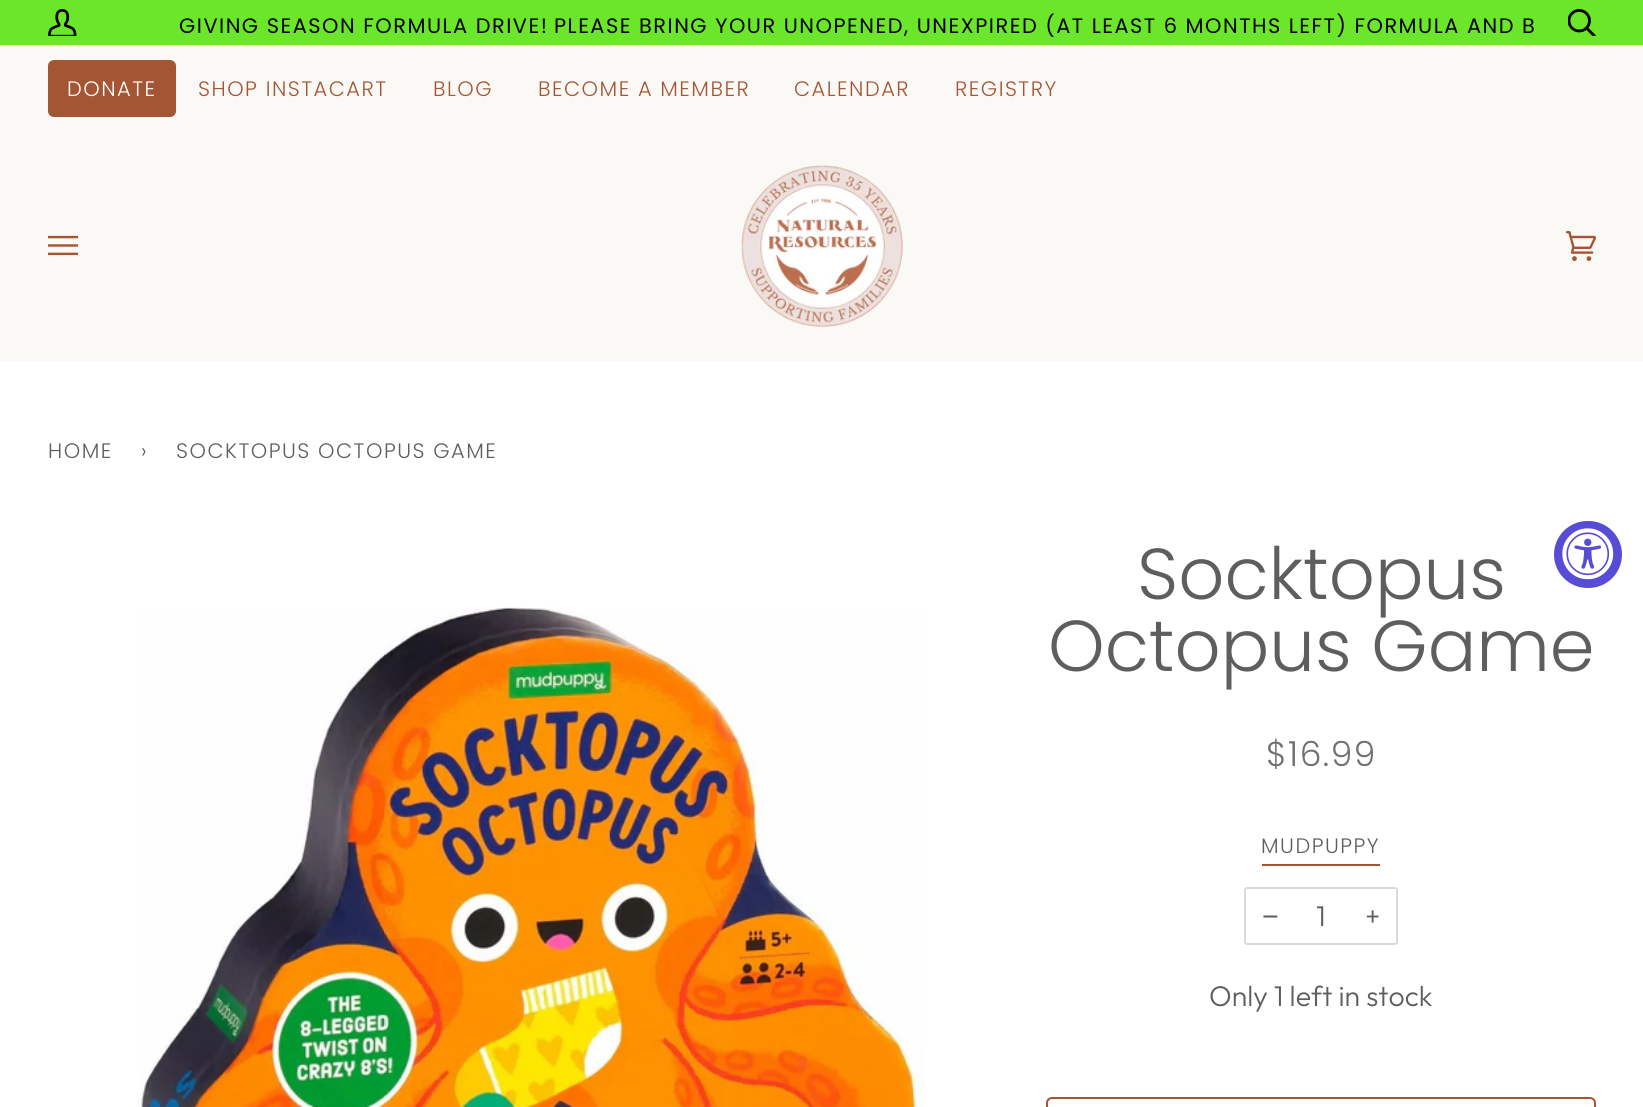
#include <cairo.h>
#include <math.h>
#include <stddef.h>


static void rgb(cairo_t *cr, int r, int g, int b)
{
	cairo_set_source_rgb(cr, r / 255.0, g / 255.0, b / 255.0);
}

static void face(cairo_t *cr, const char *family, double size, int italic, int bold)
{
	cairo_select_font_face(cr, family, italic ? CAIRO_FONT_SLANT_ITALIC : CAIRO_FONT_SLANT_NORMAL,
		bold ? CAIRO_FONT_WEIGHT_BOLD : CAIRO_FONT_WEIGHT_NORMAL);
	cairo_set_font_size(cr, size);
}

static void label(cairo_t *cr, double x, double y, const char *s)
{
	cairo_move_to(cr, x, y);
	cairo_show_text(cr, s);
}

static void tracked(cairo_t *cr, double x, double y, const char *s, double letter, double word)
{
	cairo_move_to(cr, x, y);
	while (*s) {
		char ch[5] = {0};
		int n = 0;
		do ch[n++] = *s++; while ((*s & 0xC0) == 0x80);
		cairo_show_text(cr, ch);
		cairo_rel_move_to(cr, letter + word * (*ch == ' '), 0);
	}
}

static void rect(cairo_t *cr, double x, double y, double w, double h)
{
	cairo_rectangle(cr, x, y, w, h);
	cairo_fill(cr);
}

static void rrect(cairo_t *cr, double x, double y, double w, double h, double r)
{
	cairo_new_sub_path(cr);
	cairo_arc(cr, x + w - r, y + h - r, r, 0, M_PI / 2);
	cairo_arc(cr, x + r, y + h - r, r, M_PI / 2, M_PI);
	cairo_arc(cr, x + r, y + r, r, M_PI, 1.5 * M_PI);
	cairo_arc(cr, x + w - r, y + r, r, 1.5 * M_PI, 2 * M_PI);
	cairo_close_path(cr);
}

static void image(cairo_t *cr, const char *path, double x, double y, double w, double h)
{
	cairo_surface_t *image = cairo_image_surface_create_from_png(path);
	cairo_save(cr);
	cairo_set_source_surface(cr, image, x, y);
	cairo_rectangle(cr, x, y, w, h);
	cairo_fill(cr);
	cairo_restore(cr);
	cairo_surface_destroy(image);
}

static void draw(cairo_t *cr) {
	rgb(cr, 255, 255, 255);
	cairo_paint(cr);
	rgb(cr, 108, 230, 43);
	rect(cr, 0, 0, 1643, 45);
	image(cr, "image0.png", 48, 9, 29, 27);
	face(cr, "Poppins", 20.9, 0, 0);
	rgb(cr, 0, 0, 0);
	tracked(cr, 179, 33, "GIVING SEASON FORMULA DRIVE!", 1.5, 0);
	tracked(cr, 554, 33, "PLEASE BRING YOUR UNOPENED, UNEXPIRED (AT LEAST 6 MONTHS LEFT) FORMULA AND B", 1.5, 0);
	image(cr, "image1.png", 1568, 9, 28, 27);
	rgb(cr, 250, 249, 246);
	rect(cr, 0, 45, 1643, 316);
	rgb(cr, 164, 86, 52);
	rrect(cr, 48, 60, 128, 57, 6);
	cairo_fill(cr);
	face(cr, "Poppins Light", 20.9, 0, 0);
	rgb(cr, 255, 255, 255);
	tracked(cr, 67, 96, "DONATE", 1.5, 0);
	rgb(cr, 164, 86, 52);
	tracked(cr, 198, 96, "SHOP INSTACART", 1.5, 0);
	tracked(cr, 433, 96, "BLOG", 1.5, 0);
	tracked(cr, 538, 96, "BECOME A MEMBER", 1.5, 0);
	tracked(cr, 794, 96, "CALENDAR", 1.5, 0);
	tracked(cr, 955, 96, "REGISTRY", 1.5, 0);
	image(cr, "image2.png", 48, 235, 30, 21);
	image(cr, "image3.png", 741, 165, 162, 162);
	image(cr, "image4.png", 1566, 231, 30, 30);
	rgb(cr, 95, 93, 93);
	tracked(cr, 48, 458, "HOME", 1.5, 0);
	tracked(cr, 141, 458, "›", 1.5, 0);
	tracked(cr, 176, 458, "SOCKTOPUS OCTOPUS GAME", 1.5, 0);
	image(cr, "image5.png", 138, 607, 786, 500);
	face(cr, "Poppins Light", 72, 0, 0);
	label(cr, 1137, 599, "Socktopus");
	label(cr, 1048, 671, "Octopus Game");
	face(cr, "Poppins Light", 34.5, 0, 0);
	rgb(cr, 113, 111, 111);
	tracked(cr, 1266, 766, "$16.99", 1.5, 0);
	face(cr, "Poppins Light", 20.9, 0, 0);
	rgb(cr, 95, 93, 93);
	tracked(cr, 1261, 853, "MUDPUPPY", 1.5, 0);
	rgb(cr, 164, 86, 52);
	rect(cr, 1262, 864, 118, 2);
	rrect(cr, 1245, 888, 152, 56, 2);
	rgb(cr, 219, 219, 219);
	cairo_stroke(cr);
	face(cr, "Liberation Sans", 28.5, 0, 0);
	rgb(cr, 95, 93, 93);
	label(cr, 1262, 926, "−");
	face(cr, "Outfit Light", 28.5, 0, 0);
	label(cr, 1316, 926, "1");
	label(cr, 1365, 926, "+");
	label(cr, 1209, 1006, "Only 1 left in stock");
	rrect(cr, 1047, 1098, 548, 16, 5);
	rgb(cr, 164, 86, 52);
	cairo_stroke(cr);
	rgb(cr, 87, 76, 213);
	rrect(cr, 1554, 521, 68, 67, 33.5);
	cairo_fill(cr);
	image(cr, "image6.png", 1562, 528, 52, 52);
}

int main(void) {
	cairo_surface_t *surface = cairo_image_surface_create(CAIRO_FORMAT_RGB24, 1643, 1107);
	cairo_t *cr = cairo_create(surface);
	cairo_font_options_t *options = cairo_font_options_create();
	cairo_font_options_set_hint_metrics(options, CAIRO_HINT_METRICS_OFF);
	cairo_font_options_set_hint_style(options, CAIRO_HINT_STYLE_NONE);
	cairo_set_font_options(cr, options);
	cairo_set_miter_limit(cr, 4);
	draw(cr);
	cairo_surface_write_to_png(surface, "render.png");
	cairo_font_options_destroy(options);
	cairo_destroy(cr);
	cairo_surface_destroy(surface);
	return 0;
}
